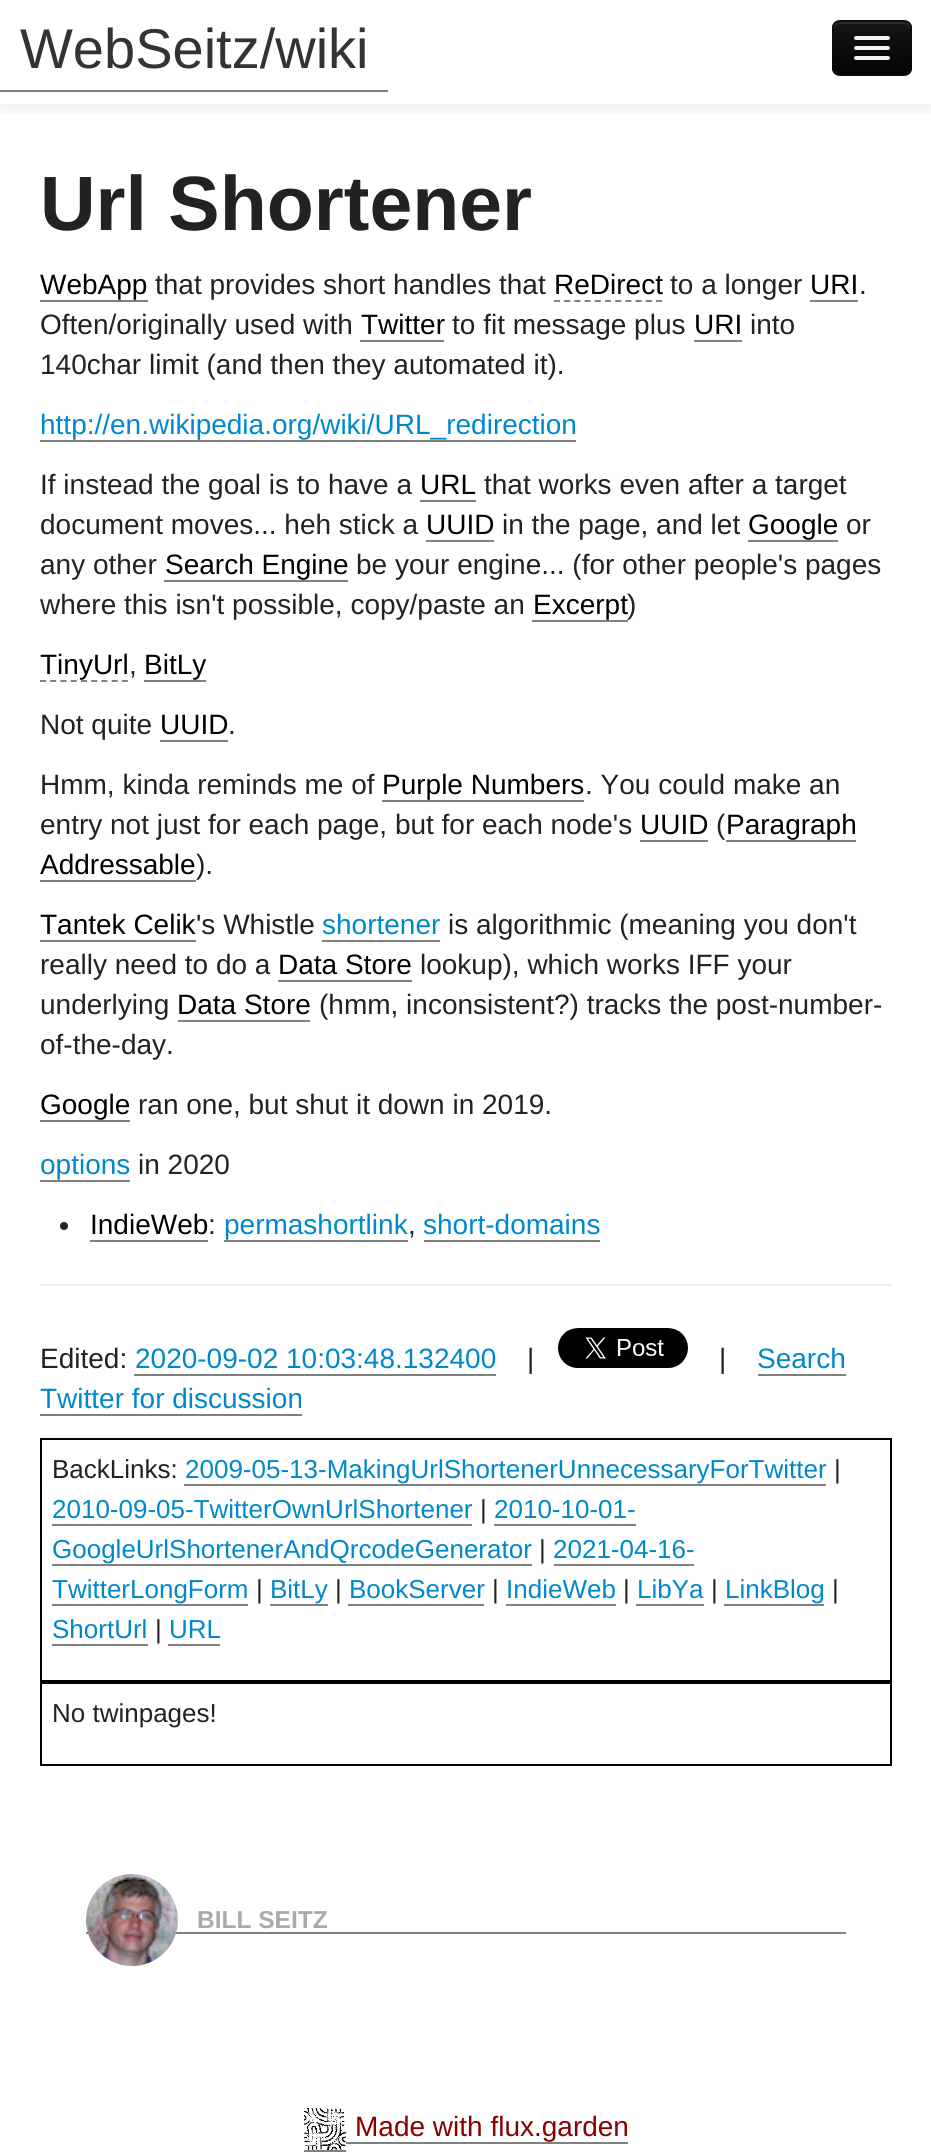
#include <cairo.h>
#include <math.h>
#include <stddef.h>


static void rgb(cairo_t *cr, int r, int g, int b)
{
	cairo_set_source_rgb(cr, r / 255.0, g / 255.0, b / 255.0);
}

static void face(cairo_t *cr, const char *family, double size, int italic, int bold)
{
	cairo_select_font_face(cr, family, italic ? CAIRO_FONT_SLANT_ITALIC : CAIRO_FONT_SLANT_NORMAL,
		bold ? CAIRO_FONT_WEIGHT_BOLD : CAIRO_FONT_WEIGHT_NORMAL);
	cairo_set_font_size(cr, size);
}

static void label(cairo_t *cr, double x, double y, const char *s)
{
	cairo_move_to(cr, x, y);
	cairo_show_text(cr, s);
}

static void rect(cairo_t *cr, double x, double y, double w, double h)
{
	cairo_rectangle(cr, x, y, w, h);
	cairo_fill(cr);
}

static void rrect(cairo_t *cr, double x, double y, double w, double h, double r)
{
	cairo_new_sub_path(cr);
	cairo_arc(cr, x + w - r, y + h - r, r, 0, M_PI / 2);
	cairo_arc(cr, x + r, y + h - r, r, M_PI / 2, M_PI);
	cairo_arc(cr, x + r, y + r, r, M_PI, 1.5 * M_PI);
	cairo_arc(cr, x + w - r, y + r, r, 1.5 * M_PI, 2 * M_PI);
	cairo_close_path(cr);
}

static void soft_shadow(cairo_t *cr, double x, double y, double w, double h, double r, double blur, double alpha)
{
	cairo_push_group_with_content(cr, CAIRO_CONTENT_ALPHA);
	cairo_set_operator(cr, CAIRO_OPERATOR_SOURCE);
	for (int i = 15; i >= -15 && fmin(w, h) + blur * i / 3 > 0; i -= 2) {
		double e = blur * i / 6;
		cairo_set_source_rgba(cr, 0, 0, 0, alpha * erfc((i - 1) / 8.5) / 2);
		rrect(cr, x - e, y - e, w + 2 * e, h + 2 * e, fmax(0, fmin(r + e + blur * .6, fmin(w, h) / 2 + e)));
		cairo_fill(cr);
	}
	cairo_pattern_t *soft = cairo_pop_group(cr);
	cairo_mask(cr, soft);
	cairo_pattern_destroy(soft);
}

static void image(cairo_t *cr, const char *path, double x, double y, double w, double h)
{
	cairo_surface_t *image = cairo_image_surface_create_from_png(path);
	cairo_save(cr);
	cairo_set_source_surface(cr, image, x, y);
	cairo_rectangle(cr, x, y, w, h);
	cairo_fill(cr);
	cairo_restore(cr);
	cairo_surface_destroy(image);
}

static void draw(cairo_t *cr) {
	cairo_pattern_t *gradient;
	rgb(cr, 255, 255, 255);
	cairo_paint(cr);
	cairo_save(cr);
	cairo_rectangle(cr, 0, 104, 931, 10);
	cairo_clip(cr);
	rgb(cr, 0, 0, 0);
	soft_shadow(cr, 0, 2, 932, 104, 0, 10, 0.1);
	cairo_restore(cr);
	rgb(cr, 128, 128, 128);
	rect(cr, 0, 90, 388, 2);
	face(cr, "Liberation Sans", 56, 0, 0);
	rgb(cr, 51, 51, 51);
	label(cr, 20, 68, "WebSeitz/wiki");
	rgb(cr, 14, 14, 14);
	rrect(cr, 832, 20, 80, 56, 8);
	cairo_fill(cr);
	cairo_save(cr);
	rrect(cr, 832, 20, 80, 56, 8);
	cairo_clip(cr);
	gradient = cairo_pattern_create_linear(872, 22, 872, 74);
	cairo_pattern_add_color_stop_rgba(gradient, 0, 0.082, 0.082, 0.082, 1);
	cairo_pattern_add_color_stop_rgba(gradient, 1, 0.016, 0.016, 0.016, 1);
	cairo_set_source(cr, gradient);
	cairo_pattern_destroy(gradient);
	rect(cr, 832, 22, 80, 52);
	cairo_restore(cr);
	rgb(cr, 44, 44, 44);
	cairo_new_path(cr);
	cairo_move_to(cr, 840, 24);
	cairo_line_to(cr, 904, 24);
	cairo_curve_to(cr, 907, 24, 910, 27, 910, 30);
	cairo_curve_to(cr, 910, 20, 902, 22, 893, 22);
	cairo_line_to(cr, 851, 22);
	cairo_curve_to(cr, 842, 22, 834, 20, 834, 30);
	cairo_curve_to(cr, 834, 27, 837, 24, 840, 24);
	cairo_close_path(cr);
	cairo_fill(cr);
	cairo_new_path(cr);
	cairo_move_to(cr, 909, 73);
	cairo_curve_to(cr, 907.5, 74.5, 906, 75, 904, 75);
	cairo_line_to(cr, 840, 75);
	cairo_curve_to(cr, 838, 75, 836.5, 74.5, 835, 73);
	cairo_set_source_rgba(cr, 0, 0, 0, 0.25);
	cairo_stroke(cr);
	cairo_new_path(cr);
	cairo_move_to(cr, 835, 73);
	cairo_curve_to(cr, 833.5, 71.5, 833, 70, 833, 68);
	cairo_line_to(cr, 833, 28);
	cairo_curve_to(cr, 833, 26, 833.5, 24.5, 835, 23);
	cairo_curve_to(cr, 836.5, 21.5, 838, 21, 840, 21);
	cairo_line_to(cr, 904, 21);
	cairo_curve_to(cr, 906, 21, 907.5, 21.5, 909, 23);
	cairo_curve_to(cr, 910.5, 24.5, 911, 26, 911, 28);
	cairo_line_to(cr, 911, 68);
	cairo_curve_to(cr, 911, 70, 910.5, 71.5, 909, 73);
	cairo_set_source_rgba(cr, 0, 0, 0, 0.1);
	cairo_stroke(cr);
	rgb(cr, 11, 11, 11);
	cairo_new_path(cr);
	cairo_move_to(cr, 854.5, 39);
	cairo_curve_to(cr, 852, 43, 861, 42, 861.5, 42);
	cairo_line_to(cr, 882.5, 42);
	cairo_curve_to(cr, 883, 42, 892, 43, 889.5, 39);
	cairo_curve_to(cr, 889.5, 39.5, 888.5, 40, 888, 40);
	cairo_line_to(cr, 856, 40);
	cairo_curve_to(cr, 855.5, 40, 854.5, 39.5, 854.5, 39);
	cairo_close_path(cr);
	cairo_fill(cr);
	rgb(cr, 245, 245, 245);
	rrect(cr, 854, 36, 36, 4, 2);
	cairo_fill(cr);
	rgb(cr, 9, 9, 9);
	cairo_new_path(cr);
	cairo_move_to(cr, 854.5, 49);
	cairo_curve_to(cr, 852, 53, 861, 52, 861.5, 52);
	cairo_line_to(cr, 882.5, 52);
	cairo_curve_to(cr, 883, 52, 892, 53, 889.5, 49);
	cairo_curve_to(cr, 889.5, 49.5, 888.5, 50, 888, 50);
	cairo_line_to(cr, 856, 50);
	cairo_curve_to(cr, 855.5, 50, 854.5, 49.5, 854.5, 49);
	cairo_close_path(cr);
	cairo_fill(cr);
	rgb(cr, 245, 245, 245);
	rrect(cr, 854, 46, 36, 4, 2);
	cairo_fill(cr);
	rrect(cr, 854, 56, 36, 4, 2);
	cairo_fill(cr);
	face(cr, "Liberation Sans", 77, 0, 1);
	rgb(cr, 34, 34, 34);
	label(cr, 40, 230, "Url Shortener");
	face(cr, "Liberation Sans", 28, 0, 0);
	rgb(cr, 0, 0, 0);
	label(cr, 40, 294, "WebApp");
	rgb(cr, 128, 128, 128);
	rect(cr, 40, 300, 108, 2);
	rgb(cr, 34, 34, 34);
	label(cr, 155, 294, "that provides short handles that");
	rgb(cr, 0, 0, 0);
	label(cr, 554, 294, "ReDirect");
	cairo_new_path(cr);
	cairo_move_to(cr, 554, 301);
	cairo_line_to(cr, 662, 301);
	rgb(cr, 128, 128, 128);
	cairo_set_dash(cr, (double[]){6, 4.2}, 2, 0);
	cairo_stroke(cr);
	rgb(cr, 34, 34, 34);
	label(cr, 670, 294, "to a longer");
	rgb(cr, 0, 0, 0);
	label(cr, 810, 294, "URI");
	rgb(cr, 128, 128, 128);
	rect(cr, 810, 300, 48, 2);
	rgb(cr, 34, 34, 34);
	label(cr, 859, 294, ".");
	label(cr, 40, 334, "Often/originally used with");
	rgb(cr, 0, 0, 0);
	label(cr, 361, 334, "Twitter");
	rgb(cr, 128, 128, 128);
	rect(cr, 360, 340, 84, 2);
	rgb(cr, 34, 34, 34);
	label(cr, 452, 334, "to fit message plus");
	rgb(cr, 0, 0, 0);
	label(cr, 694, 334, "URI");
	rgb(cr, 128, 128, 128);
	rect(cr, 694, 340, 48, 2);
	rgb(cr, 34, 34, 34);
	label(cr, 750, 334, "into");
	label(cr, 40, 374, "140char limit (and then they automated it).");
	rgb(cr, 0, 136, 204);
	label(cr, 40, 434, "http://en.wikipedia.org/wiki/URL_redirection");
	rgb(cr, 128, 128, 128);
	rect(cr, 40, 440, 536, 2);
	rgb(cr, 34, 34, 34);
	label(cr, 40, 494, "If instead the goal is to have a");
	rgb(cr, 0, 0, 0);
	label(cr, 420, 494, "URL");
	rgb(cr, 128, 128, 128);
	rect(cr, 420, 500, 56, 2);
	rgb(cr, 34, 34, 34);
	label(cr, 484, 494, "that works even after a target");
	label(cr, 40, 534, "document moves... heh stick a");
	rgb(cr, 0, 0, 0);
	label(cr, 426, 534, "UUID");
	rgb(cr, 128, 128, 128);
	rect(cr, 426, 540, 68, 2);
	rgb(cr, 34, 34, 34);
	label(cr, 502, 534, "in the page, and let");
	rgb(cr, 0, 0, 0);
	label(cr, 748, 534, "Google");
	rgb(cr, 128, 128, 128);
	rect(cr, 748, 540, 90, 2);
	rgb(cr, 34, 34, 34);
	label(cr, 846, 534, "or");
	label(cr, 40, 574, "any other");
	rgb(cr, 0, 0, 0);
	label(cr, 165, 574, "Search Engine");
	rgb(cr, 128, 128, 128);
	rect(cr, 164, 580, 184, 2);
	rgb(cr, 34, 34, 34);
	label(cr, 356, 574, "be your engine... (for other people's pages");
	label(cr, 40, 614, "where this isn't possible, copy/paste an");
	rgb(cr, 0, 0, 0);
	label(cr, 533, 614, "Excerpt");
	rgb(cr, 128, 128, 128);
	rect(cr, 532, 620, 96, 2);
	rgb(cr, 34, 34, 34);
	label(cr, 627, 614, ")");
	rgb(cr, 0, 0, 0);
	label(cr, 40, 674, "TinyUrl");
	cairo_new_path(cr);
	cairo_move_to(cr, 40, 681);
	cairo_line_to(cr, 128, 681);
	rgb(cr, 128, 128, 128);
	cairo_set_dash(cr, (double[]){6, 4.24}, 2, 0);
	cairo_stroke(cr);
	rgb(cr, 34, 34, 34);
	label(cr, 129, 674, ",");
	rgb(cr, 0, 0, 0);
	label(cr, 144, 674, "BitLy");
	rgb(cr, 128, 128, 128);
	rect(cr, 144, 680, 62, 2);
	rgb(cr, 34, 34, 34);
	label(cr, 40, 734, "Not quite");
	rgb(cr, 0, 0, 0);
	label(cr, 160, 734, "UUID");
	rgb(cr, 128, 128, 128);
	rect(cr, 160, 740, 68, 2);
	rgb(cr, 34, 34, 34);
	label(cr, 228, 734, ".");
	label(cr, 40, 794, "Hmm, kinda reminds me of");
	rgb(cr, 0, 0, 0);
	label(cr, 382, 794, "Purple Numbers");
	rgb(cr, 128, 128, 128);
	rect(cr, 382, 800, 202, 2);
	rgb(cr, 34, 34, 34);
	label(cr, 585, 794, ". You could make an");
	label(cr, 40, 834, "entry not just for each page, but for each node's");
	rgb(cr, 0, 0, 0);
	label(cr, 640, 834, "UUID");
	rgb(cr, 128, 128, 128);
	rect(cr, 640, 840, 68, 2);
	rgb(cr, 34, 34, 34);
	label(cr, 716, 834, "(");
	rgb(cr, 0, 0, 0);
	label(cr, 726, 834, "Paragraph");
	rgb(cr, 128, 128, 128);
	rect(cr, 726, 840, 130, 2);
	rgb(cr, 0, 0, 0);
	label(cr, 40, 874, "Addressable");
	rgb(cr, 128, 128, 128);
	rect(cr, 40, 880, 156, 2);
	rgb(cr, 34, 34, 34);
	label(cr, 196, 874, ").");
	rgb(cr, 0, 0, 0);
	label(cr, 40, 934, "Tantek Celik");
	rgb(cr, 128, 128, 128);
	rect(cr, 40, 940, 156, 2);
	rgb(cr, 34, 34, 34);
	label(cr, 196, 934, "'s Whistle");
	rgb(cr, 0, 136, 204);
	label(cr, 322, 934, "shortener");
	rgb(cr, 128, 128, 128);
	rect(cr, 322, 940, 118, 2);
	rgb(cr, 34, 34, 34);
	label(cr, 448, 934, "is algorithmic (meaning you don't");
	label(cr, 40, 974, "really need to do a");
	rgb(cr, 0, 0, 0);
	label(cr, 278, 974, "Data Store");
	rgb(cr, 128, 128, 128);
	rect(cr, 278, 980, 134, 2);
	rgb(cr, 34, 34, 34);
	label(cr, 420, 974, "lookup), which works IFF your");
	label(cr, 40, 1014, "underlying");
	rgb(cr, 0, 0, 0);
	label(cr, 177, 1014, "Data Store");
	rgb(cr, 128, 128, 128);
	rect(cr, 178, 1020, 132, 2);
	rgb(cr, 34, 34, 34);
	label(cr, 319, 1014, "(hmm, inconsistent?) tracks the post-number-");
	label(cr, 40, 1054, "of-the-day.");
	rgb(cr, 0, 0, 0);
	label(cr, 40, 1114, "Google");
	rgb(cr, 128, 128, 128);
	rect(cr, 40, 1120, 90, 2);
	rgb(cr, 34, 34, 34);
	label(cr, 138, 1114, "ran one, but shut it down in 2019.");
	rgb(cr, 0, 136, 204);
	label(cr, 40, 1174, "options");
	rgb(cr, 128, 128, 128);
	rect(cr, 40, 1180, 90, 2);
	rgb(cr, 34, 34, 34);
	label(cr, 138, 1174, "in 2020");
	cairo_new_path(cr);
	cairo_arc(cr, 64, 1226, 4, 0, 2 * M_PI);
	cairo_fill(cr);
	rgb(cr, 0, 0, 0);
	label(cr, 90, 1234, "IndieWeb");
	rgb(cr, 128, 128, 128);
	rect(cr, 90, 1240, 118, 2);
	rgb(cr, 34, 34, 34);
	label(cr, 208, 1234, ":");
	rgb(cr, 0, 136, 204);
	label(cr, 224, 1234, "permashortlink");
	rgb(cr, 128, 128, 128);
	rect(cr, 224, 1240, 184, 2);
	rgb(cr, 0, 136, 204);
	label(cr, 423, 1234, "short-domains");
	rgb(cr, 128, 128, 128);
	rect(cr, 424, 1240, 176, 2);
	rgb(cr, 34, 34, 34);
	label(cr, 408, 1234, ",");
	rgb(cr, 238, 238, 238);
	rect(cr, 40, 1284, 852, 2);
	rgb(cr, 34, 34, 34);
	label(cr, 40, 1368, "Edited:");
	rgb(cr, 0, 136, 204);
	label(cr, 135, 1368, "2020-09-02 10:03:48.132400");
	rgb(cr, 128, 128, 128);
	rect(cr, 134, 1374, 362, 2);
	rgb(cr, 34, 34, 34);
	label(cr, 527, 1368, "|");
	image(cr, "image0.png", 558, 1328, 130, 40);
	label(cr, 719, 1368, "|");
	rgb(cr, 0, 136, 204);
	label(cr, 757, 1368, "Search");
	rgb(cr, 128, 128, 128);
	rect(cr, 758, 1374, 88, 2);
	rgb(cr, 0, 136, 204);
	label(cr, 40, 1408, "Twitter for discussion");
	rgb(cr, 128, 128, 128);
	rect(cr, 40, 1414, 262, 2);
	cairo_rectangle(cr, 41, 1439, 850, 242);
	rgb(cr, 0, 0, 0);
	cairo_set_dash(cr, NULL, 0, 0);
	cairo_stroke(cr);
	face(cr, "Liberation Sans", 26, 0, 0);
	rgb(cr, 34, 34, 34);
	label(cr, 52, 1478, "BackLinks:");
	rgb(cr, 0, 136, 204);
	label(cr, 185, 1478, "2009-05-13-MakingUrlShortenerUnnecessaryForTwitter");
	rgb(cr, 128, 128, 128);
	rect(cr, 184, 1484, 642, 2);
	rgb(cr, 34, 34, 34);
	label(cr, 834, 1478, "|");
	rgb(cr, 0, 136, 204);
	label(cr, 52, 1518, "2010-09-05-TwitterOwnUrlShortener");
	rgb(cr, 128, 128, 128);
	rect(cr, 52, 1524, 420, 2);
	rgb(cr, 34, 34, 34);
	label(cr, 480, 1518, "|");
	rgb(cr, 0, 136, 204);
	label(cr, 494, 1518, "2010-10-01-");
	rgb(cr, 128, 128, 128);
	rect(cr, 494, 1524, 142, 2);
	rgb(cr, 0, 136, 204);
	label(cr, 52, 1558, "GoogleUrlShortenerAndQrcodeGenerator");
	rgb(cr, 128, 128, 128);
	rect(cr, 52, 1564, 480, 2);
	rgb(cr, 34, 34, 34);
	label(cr, 539, 1558, "|");
	rgb(cr, 0, 136, 204);
	label(cr, 553, 1558, "2021-04-16-");
	rgb(cr, 128, 128, 128);
	rect(cr, 554, 1564, 140, 2);
	rgb(cr, 0, 136, 204);
	label(cr, 52, 1598, "TwitterLongForm");
	rgb(cr, 128, 128, 128);
	rect(cr, 52, 1604, 196, 2);
	rgb(cr, 34, 34, 34);
	label(cr, 256, 1598, "|");
	rgb(cr, 0, 136, 204);
	label(cr, 270, 1598, "BitLy");
	rgb(cr, 128, 128, 128);
	rect(cr, 270, 1604, 58, 2);
	rgb(cr, 34, 34, 34);
	label(cr, 335, 1598, "|");
	rgb(cr, 0, 136, 204);
	label(cr, 349, 1598, "BookServer");
	rgb(cr, 128, 128, 128);
	rect(cr, 348, 1604, 136, 2);
	rgb(cr, 34, 34, 34);
	label(cr, 492, 1598, "|");
	rgb(cr, 0, 136, 204);
	label(cr, 506, 1598, "IndieWeb");
	rgb(cr, 128, 128, 128);
	rect(cr, 506, 1604, 110, 2);
	rgb(cr, 34, 34, 34);
	label(cr, 623, 1598, "|");
	rgb(cr, 0, 136, 204);
	label(cr, 637, 1598, "LibYa");
	rgb(cr, 128, 128, 128);
	rect(cr, 636, 1604, 68, 2);
	rgb(cr, 34, 34, 34);
	label(cr, 711, 1598, "|");
	rgb(cr, 0, 136, 204);
	label(cr, 725, 1598, "LinkBlog");
	rgb(cr, 128, 128, 128);
	rect(cr, 724, 1604, 100, 2);
	rgb(cr, 34, 34, 34);
	label(cr, 832, 1598, "|");
	rgb(cr, 0, 136, 204);
	label(cr, 52, 1638, "ShortUrl");
	rgb(cr, 128, 128, 128);
	rect(cr, 52, 1644, 96, 2);
	rgb(cr, 34, 34, 34);
	label(cr, 155, 1638, "|");
	rgb(cr, 0, 136, 204);
	label(cr, 169, 1638, "URL");
	rgb(cr, 128, 128, 128);
	rect(cr, 168, 1644, 52, 2);
	cairo_rectangle(cr, 41, 1683, 850, 82);
	rgb(cr, 0, 0, 0);
	cairo_stroke(cr);
	rgb(cr, 34, 34, 34);
	label(cr, 52, 1722, "No twinpages!");
	rgb(cr, 128, 128, 128);
	rect(cr, 86, 1932, 760, 2);
	image(cr, "image1.png", 86, 1874, 92, 92);
	face(cr, "Liberation Sans", 24.5, 0, 1);
	rgb(cr, 170, 170, 170);
	label(cr, 197, 1928, "BILL SEITZ");
	image(cr, "image2.png", 304, 2108, 42, 42);
	face(cr, "Liberation Sans", 28, 0, 0);
	rgb(cr, 136, 0, 0);
	label(cr, 355, 2136, "Made with flux.garden");
	rgb(cr, 128, 128, 128);
	rect(cr, 304, 2150, 42, 2);
	rect(cr, 346, 2142, 282, 2);
}

int main(void) {
	cairo_surface_t *surface = cairo_image_surface_create(CAIRO_FORMAT_RGB24, 931, 2152);
	cairo_t *cr = cairo_create(surface);
	cairo_font_options_t *options = cairo_font_options_create();
	cairo_font_options_set_hint_metrics(options, CAIRO_HINT_METRICS_OFF);
	cairo_font_options_set_hint_style(options, CAIRO_HINT_STYLE_NONE);
	cairo_set_font_options(cr, options);
	cairo_set_miter_limit(cr, 4);
	draw(cr);
	cairo_surface_write_to_png(surface, "render.png");
	cairo_font_options_destroy(options);
	cairo_destroy(cr);
	cairo_surface_destroy(surface);
	return 0;
}
